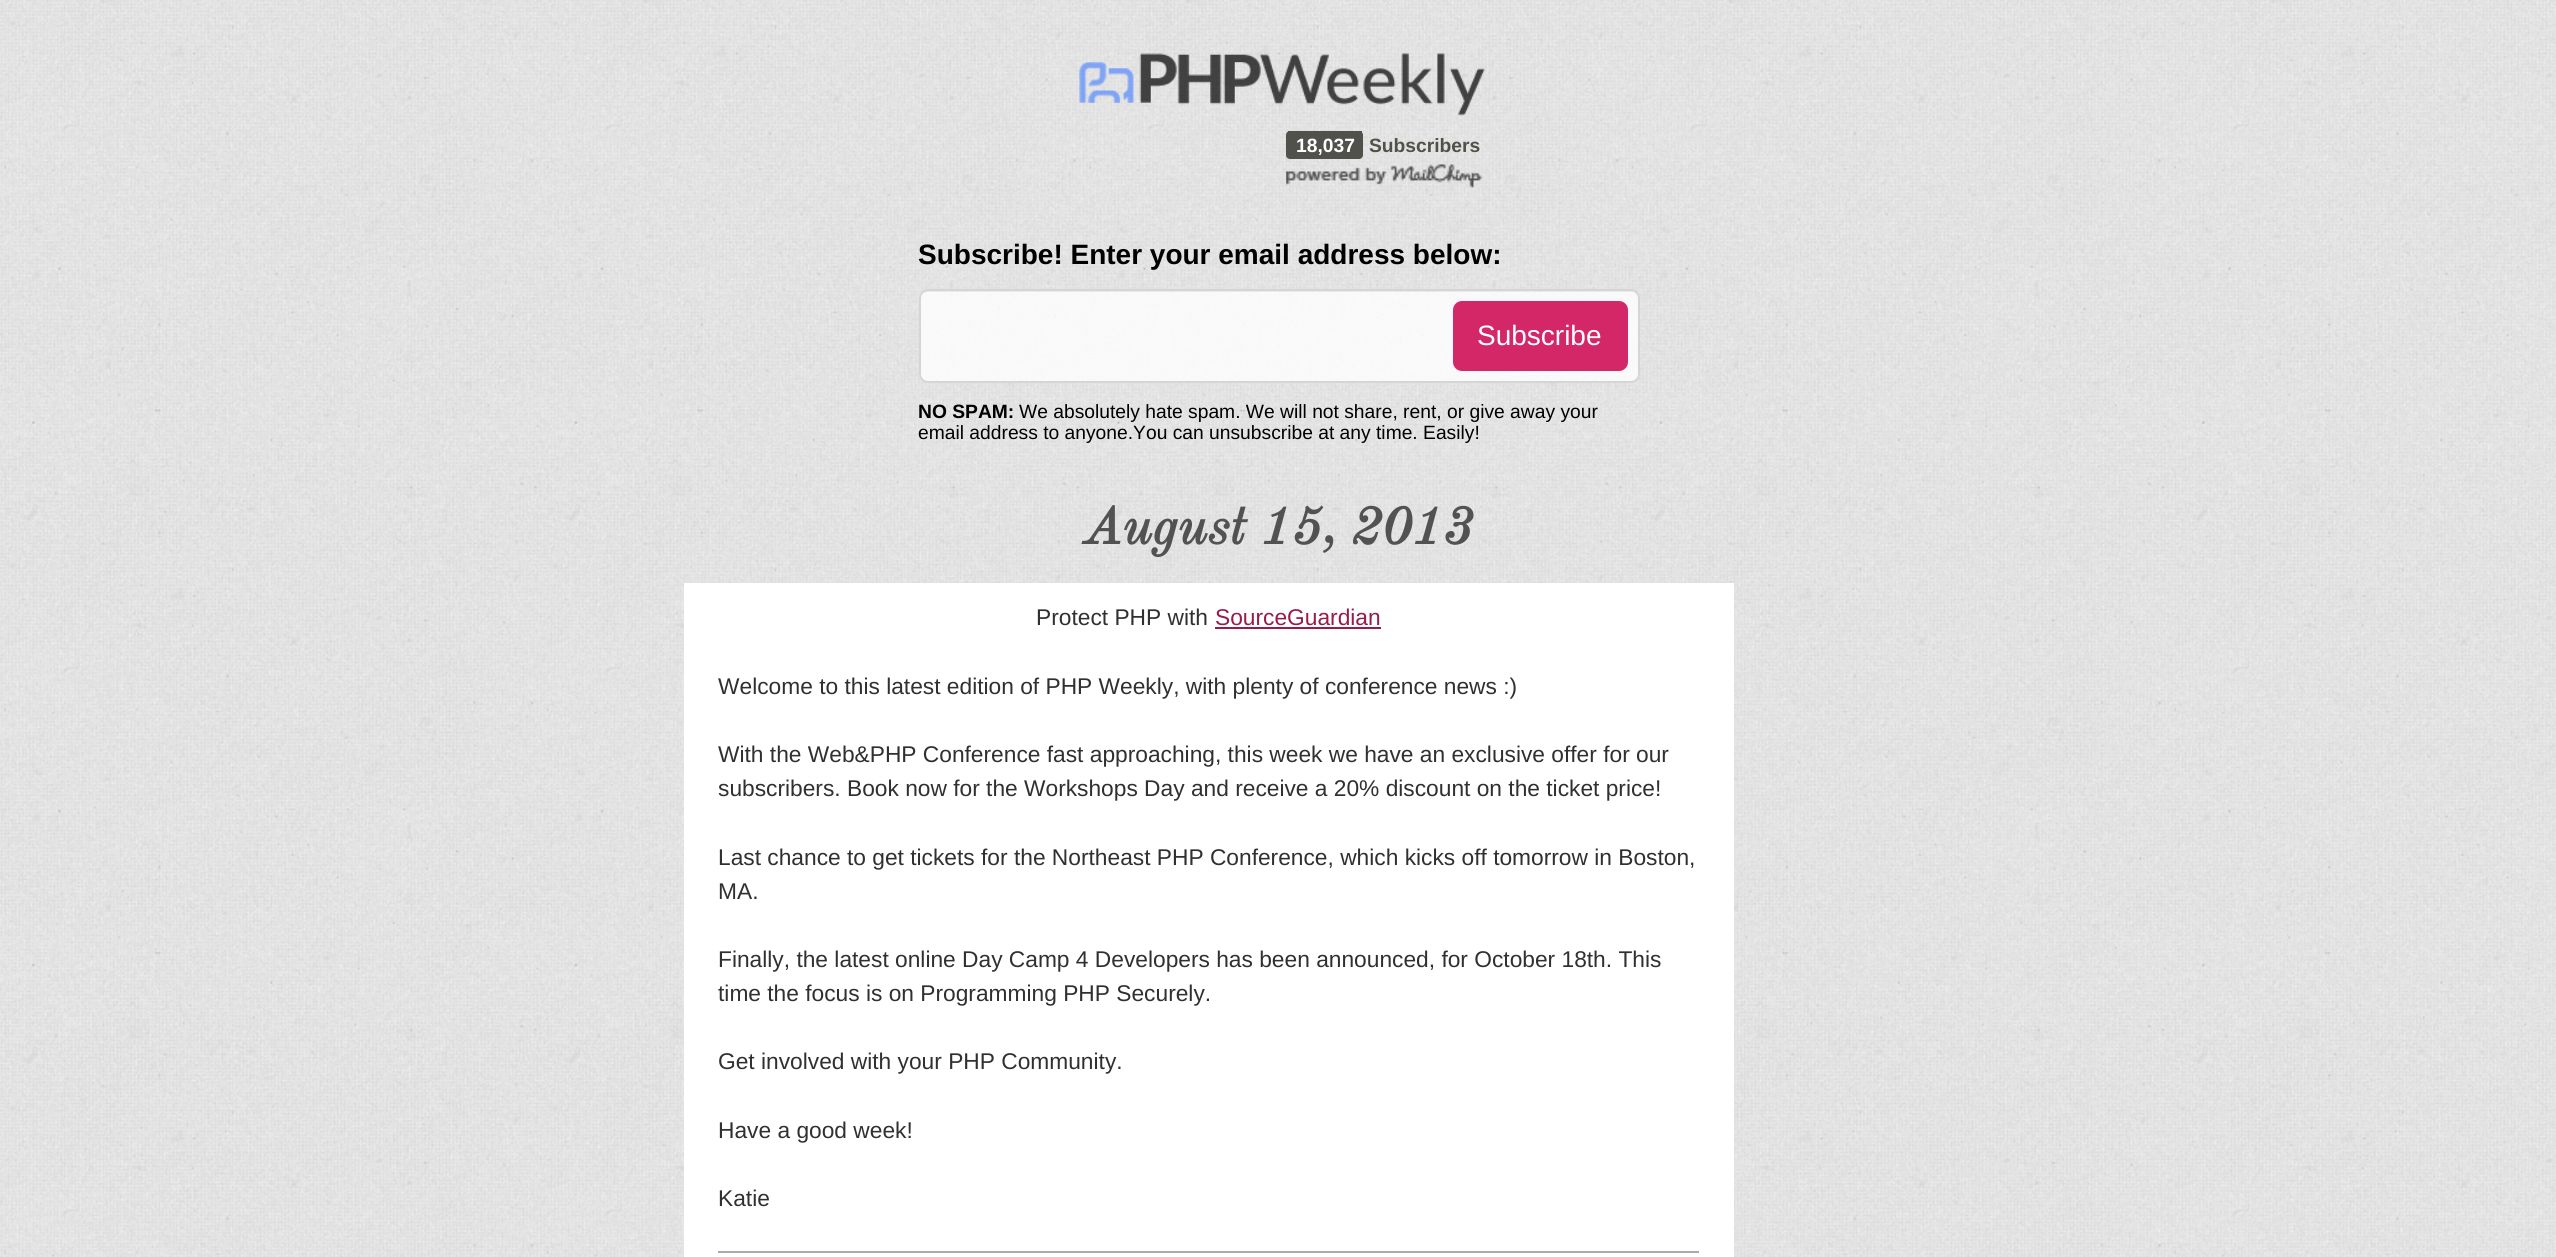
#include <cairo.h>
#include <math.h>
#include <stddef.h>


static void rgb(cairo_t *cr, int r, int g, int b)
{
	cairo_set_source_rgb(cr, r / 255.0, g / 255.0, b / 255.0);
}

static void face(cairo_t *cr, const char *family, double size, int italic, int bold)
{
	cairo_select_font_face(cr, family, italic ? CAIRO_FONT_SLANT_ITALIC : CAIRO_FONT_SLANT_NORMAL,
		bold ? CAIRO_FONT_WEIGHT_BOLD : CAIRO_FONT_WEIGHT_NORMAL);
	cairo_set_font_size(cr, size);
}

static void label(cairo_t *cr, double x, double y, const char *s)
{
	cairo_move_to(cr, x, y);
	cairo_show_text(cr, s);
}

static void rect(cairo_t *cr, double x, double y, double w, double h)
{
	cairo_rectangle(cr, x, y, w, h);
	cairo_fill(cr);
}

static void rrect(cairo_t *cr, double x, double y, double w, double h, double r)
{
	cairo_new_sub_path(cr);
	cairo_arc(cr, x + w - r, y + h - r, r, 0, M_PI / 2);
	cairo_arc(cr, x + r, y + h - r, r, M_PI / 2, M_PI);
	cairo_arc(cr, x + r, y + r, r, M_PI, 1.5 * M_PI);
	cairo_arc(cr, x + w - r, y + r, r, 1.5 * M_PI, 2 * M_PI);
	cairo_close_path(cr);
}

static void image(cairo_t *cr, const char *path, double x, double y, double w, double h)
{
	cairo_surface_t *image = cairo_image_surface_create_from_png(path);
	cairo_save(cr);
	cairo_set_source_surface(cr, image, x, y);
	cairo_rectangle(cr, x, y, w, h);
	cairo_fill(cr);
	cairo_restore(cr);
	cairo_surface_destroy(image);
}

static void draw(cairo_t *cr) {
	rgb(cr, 255, 255, 255);
	cairo_paint(cr);
	image(cr, "image0.png", 0, 0, 2556, 1257);
	image(cr, "image1.png", 1079, 53, 406, 63);
	rgb(cr, 80, 81, 74);
	rrect(cr, 1286, 131, 77, 28, 4);
	cairo_fill(cr);
	rect(cr, 1288, 131, 74, 2);
	face(cr, "Liberation Sans", 19.25, 0, 1);
	rgb(cr, 255, 255, 255);
	label(cr, 1296, 152, "18,037");
	rgb(cr, 81, 81, 74);
	label(cr, 1369, 152, "Subscribers");
	image(cr, "image2.png", 1286, 164, 197, 24);
	face(cr, "Liberation Sans", 28, 0, 1);
	rgb(cr, 0, 0, 0);
	label(cr, 918, 264, "Subscribe! Enter your email address below:");
	cairo_set_source_rgba(cr, 1, 1, 1, 0.8);
	rrect(cr, 919, 289, 721, 94, 9);
	cairo_fill(cr);
	cairo_set_source_rgba(cr, 0, 0, 0, 0.06);
	cairo_new_path(cr);
	cairo_move_to(cr, 928, 292);
	cairo_line_to(cr, 1631, 292);
	cairo_curve_to(cr, 1635, 292, 1638, 295, 1638, 299);
	cairo_line_to(cr, 1638, 298);
	cairo_curve_to(cr, 1638, 294, 1635, 291, 1631, 291);
	cairo_line_to(cr, 928, 291);
	cairo_curve_to(cr, 925, 291, 923, 292, 922, 295);
	cairo_curve_to(cr, 923, 293, 926, 292, 928, 292);
	cairo_close_path(cr);
	cairo_fill(cr);
	rrect(cr, 920, 290, 719, 92, 8);
	cairo_set_source_rgba(cr, 0.8, 0.8, 0.8, 0.8);
	cairo_stroke(cr);
	rgb(cr, 211, 39, 104);
	rrect(cr, 1453, 301, 175, 70, 9);
	cairo_fill(cr);
	face(cr, "Liberation Sans", 28, 0, 0);
	rgb(cr, 255, 255, 255);
	label(cr, 1477, 345, "Subscribe");
	face(cr, "Liberation Sans", 19.25, 0, 1);
	rgb(cr, 0, 0, 0);
	label(cr, 918, 418, "NO SPAM:");
	face(cr, "Liberation Sans", 19.25, 0, 0);
	label(cr, 1019, 418, "We absolutely hate spam. We will not share, rent, or give away your");
	label(cr, 918, 439, "email address to anyone.You can unsubscribe at any time. Easily!");
	face(cr, "Old Standard TT", 52.5, 1, 1);
	rgb(cr, 82, 82, 82);
	label(cr, 1084, 544, "August 15, 2013");
	rgb(cr, 255, 255, 255);
	rect(cr, 684, 583, 1050, 674);
	face(cr, "Liberation Sans", 22.75, 0, 0);
	rgb(cr, 48, 48, 48);
	label(cr, 1036, 625, "Protect PHP with");
	rgb(cr, 153, 27, 74);
	label(cr, 1215, 625, "SourceGuardian");
	rect(cr, 1215, 627, 166, 2);
	rgb(cr, 48, 48, 48);
	label(cr, 718, 694, "Welcome to this latest edition of PHP Weekly, with plenty of conference news :)");
	label(cr, 718, 762, "With the Web&PHP Conference fast approaching, this week we have an exclusive offer for our");
	label(cr, 718, 796, "subscribers. Book now for the Workshops Day and receive a 20% discount on the ticket price!");
	label(cr, 718, 865, "Last chance to get tickets for the Northeast PHP Conference, which kicks off tomorrow in Boston,");
	label(cr, 718, 899, "MA.");
	label(cr, 718, 967, "Finally, the latest online Day Camp 4 Developers has been announced, for October 18th. This");
	label(cr, 718, 1001, "time the focus is on Programming PHP Securely.");
	label(cr, 718, 1069, "Get involved with your PHP Community.");
	label(cr, 718, 1138, "Have a good week!");
	label(cr, 718, 1206, "Katie");
	rgb(cr, 170, 170, 170);
	rect(cr, 718, 1251, 981, 2);
}

int main(void) {
	cairo_surface_t *surface = cairo_image_surface_create(CAIRO_FORMAT_RGB24, 2556, 1257);
	cairo_t *cr = cairo_create(surface);
	cairo_font_options_t *options = cairo_font_options_create();
	cairo_font_options_set_hint_metrics(options, CAIRO_HINT_METRICS_OFF);
	cairo_font_options_set_hint_style(options, CAIRO_HINT_STYLE_NONE);
	cairo_set_font_options(cr, options);
	cairo_set_miter_limit(cr, 4);
	draw(cr);
	cairo_surface_write_to_png(surface, "render.png");
	cairo_font_options_destroy(options);
	cairo_destroy(cr);
	cairo_surface_destroy(surface);
	return 0;
}
